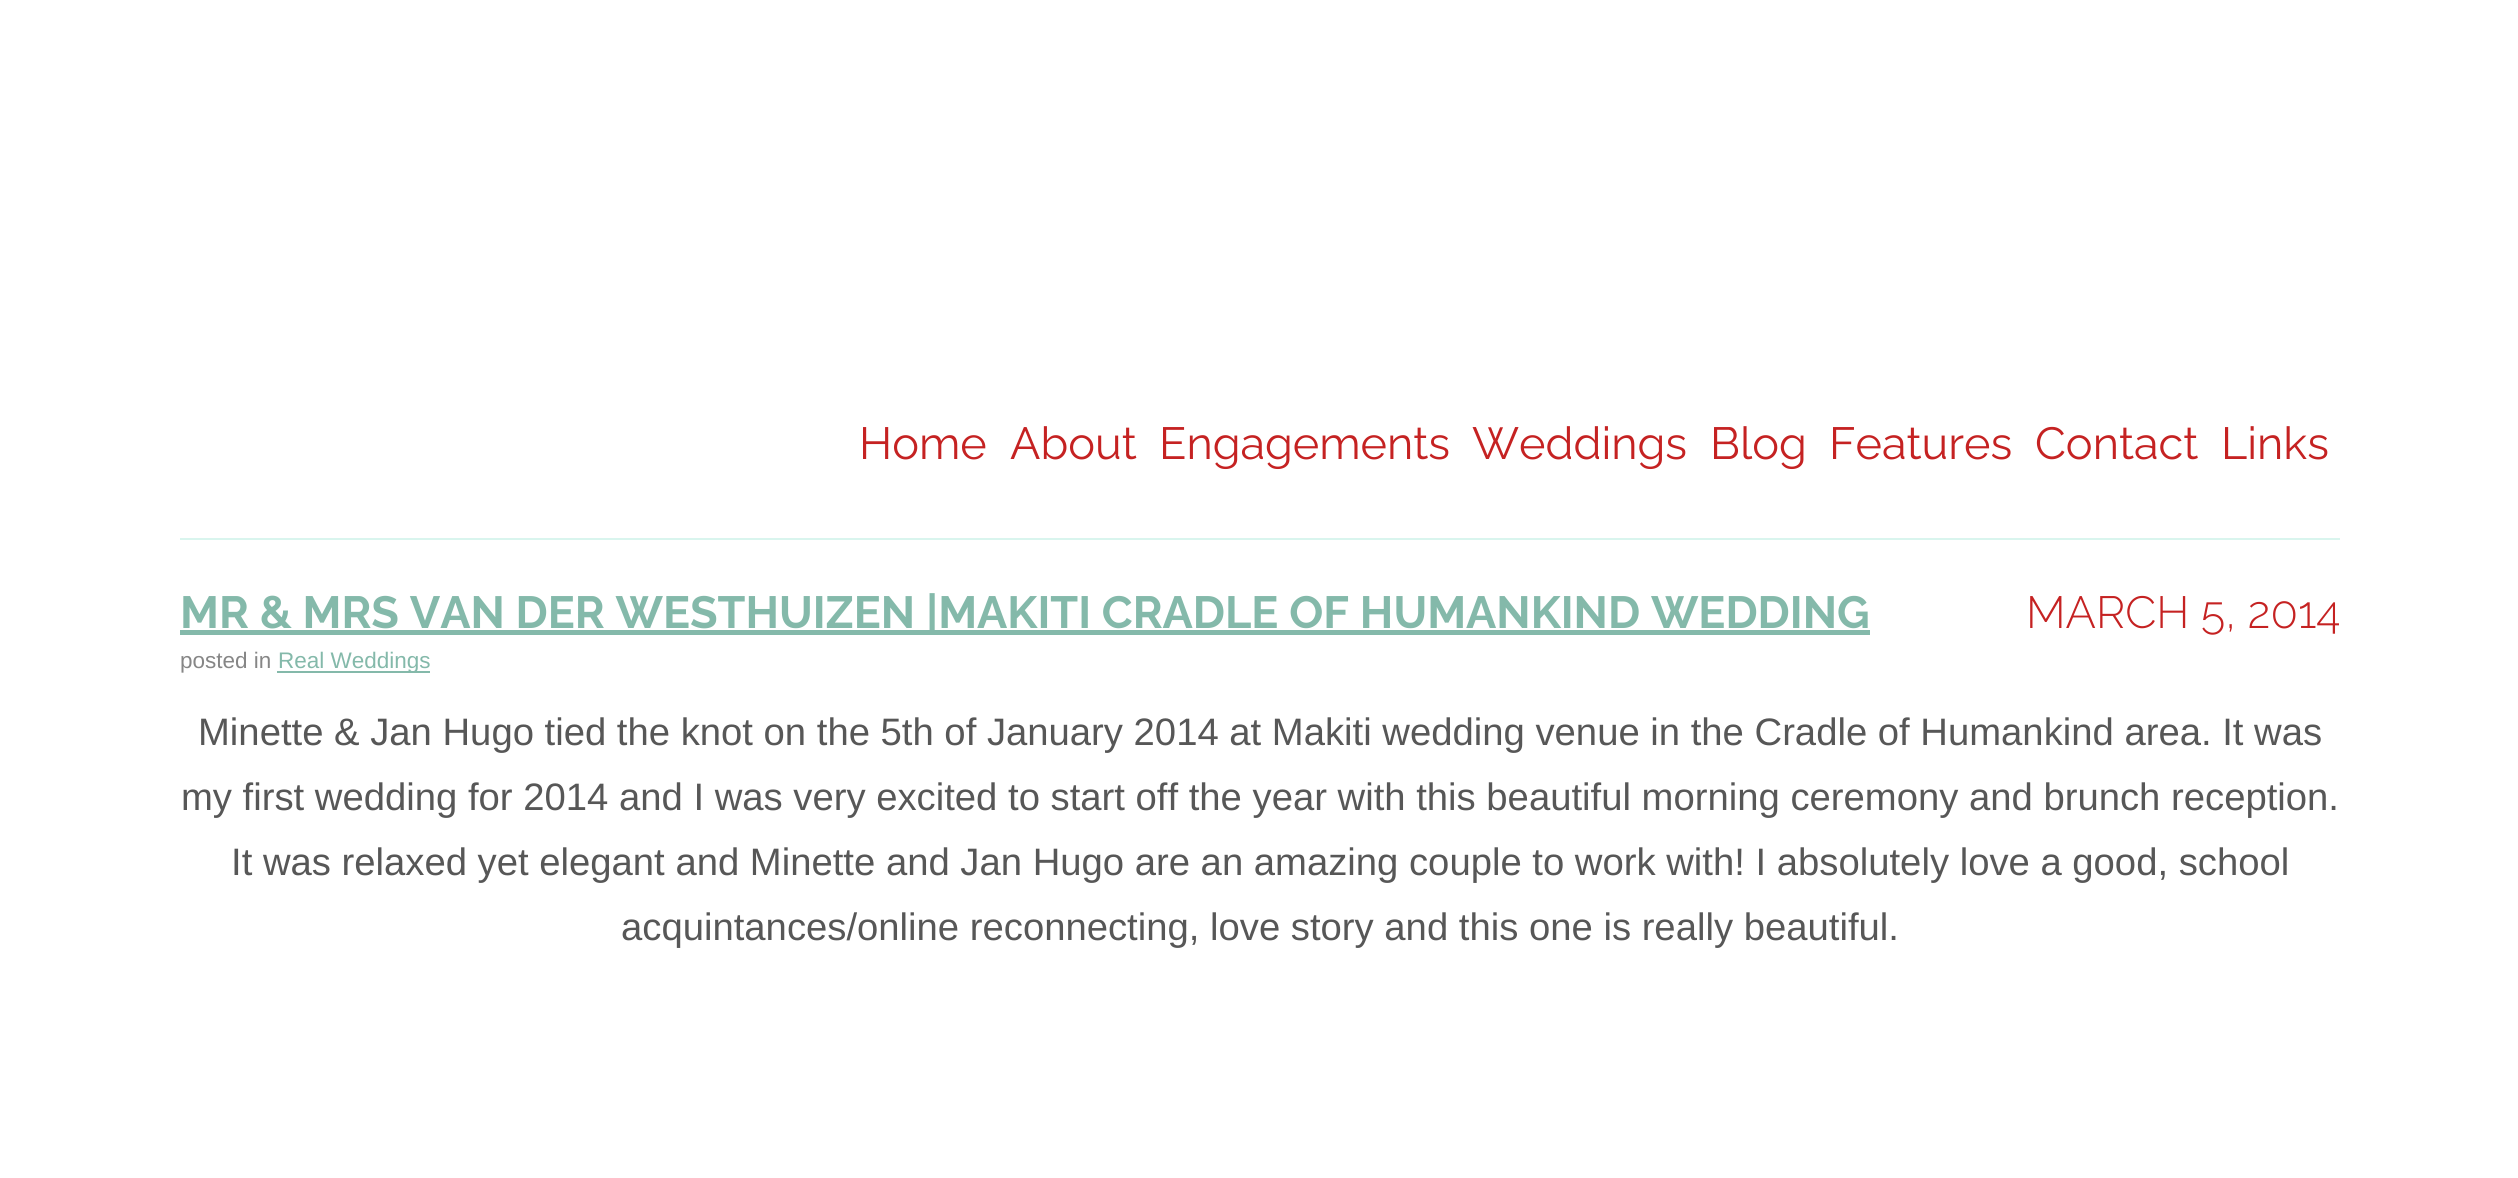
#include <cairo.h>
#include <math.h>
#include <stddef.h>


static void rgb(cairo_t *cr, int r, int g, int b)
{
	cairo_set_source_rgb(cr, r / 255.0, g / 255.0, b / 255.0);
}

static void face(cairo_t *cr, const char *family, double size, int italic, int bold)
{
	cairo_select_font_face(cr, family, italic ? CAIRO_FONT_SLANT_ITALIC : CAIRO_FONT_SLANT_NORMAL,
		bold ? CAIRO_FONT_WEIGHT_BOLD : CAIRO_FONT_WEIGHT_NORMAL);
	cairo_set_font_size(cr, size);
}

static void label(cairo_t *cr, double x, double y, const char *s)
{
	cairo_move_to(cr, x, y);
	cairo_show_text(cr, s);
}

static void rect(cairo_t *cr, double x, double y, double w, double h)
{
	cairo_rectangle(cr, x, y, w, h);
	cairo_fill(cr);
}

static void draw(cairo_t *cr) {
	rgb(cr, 255, 255, 255);
	cairo_paint(cr);
	face(cr, "Raleway", 45, 0, 0);
	rgb(cr, 197, 34, 34);
	label(cr, 859, 459, "Home");
	label(cr, 1010, 459, "About");
	label(cr, 1159, 459, "Engagements");
	label(cr, 1472, 459, "Weddings");
	label(cr, 1710, 459, "Blog");
	label(cr, 1829, 459, "Features");
	label(cr, 2035, 459, "Contact");
	label(cr, 2221, 459, "Links");
	rgb(cr, 217, 245, 238);
	rect(cr, 180, 538, 2160, 2);
	rgb(cr, 132, 185, 170);
	rect(cr, 180, 630, 1690, 5);
	face(cr, "Raleway", 45, 0, 1);
	label(cr, 180, 628, "MR & MRS VAN DER WESTHUIZEN |MAKITI CRADLE OF HUMANKIND WEDDING");
	face(cr, "Raleway Light", 45, 0, 0);
	rgb(cr, 197, 34, 34);
	label(cr, 2026, 628, "MARCH 5, 2014");
	face(cr, "Liberation Sans", 22.5, 0, 0);
	rgb(cr, 134, 134, 134);
	label(cr, 180, 668, "posted in");
	rgb(cr, 132, 185, 170);
	rect(cr, 277, 671, 153, 2);
	label(cr, 278, 668, "Real Weddings");
	face(cr, "Liberation Sans", 38.25, 0, 0);
	rgb(cr, 87, 87, 87);
	label(cr, 198, 745, "Minette & Jan Hugo tied the knot on the 5th of January 2014 at Makiti wedding venue in the Cradle of Humankind area. It was");
	label(cr, 181, 810, "my first wedding for 2014 and I was very excited to start off the year with this beautiful morning ceremony and brunch reception.");
	label(cr, 231, 875, "It was relaxed yet elegant and Minette and Jan Hugo are an amazing couple to work with! I absolutely love a good, school");
	label(cr, 621, 940, "acquintances/online reconnecting, love story and this one is really beautiful.");
}

int main(void) {
	cairo_surface_t *surface = cairo_image_surface_create(CAIRO_FORMAT_RGB24, 2518, 1178);
	cairo_t *cr = cairo_create(surface);
	cairo_font_options_t *options = cairo_font_options_create();
	cairo_font_options_set_hint_metrics(options, CAIRO_HINT_METRICS_OFF);
	cairo_font_options_set_hint_style(options, CAIRO_HINT_STYLE_NONE);
	cairo_set_font_options(cr, options);
	cairo_set_miter_limit(cr, 4);
	draw(cr);
	cairo_surface_write_to_png(surface, "render.png");
	cairo_font_options_destroy(options);
	cairo_destroy(cr);
	cairo_surface_destroy(surface);
	return 0;
}
